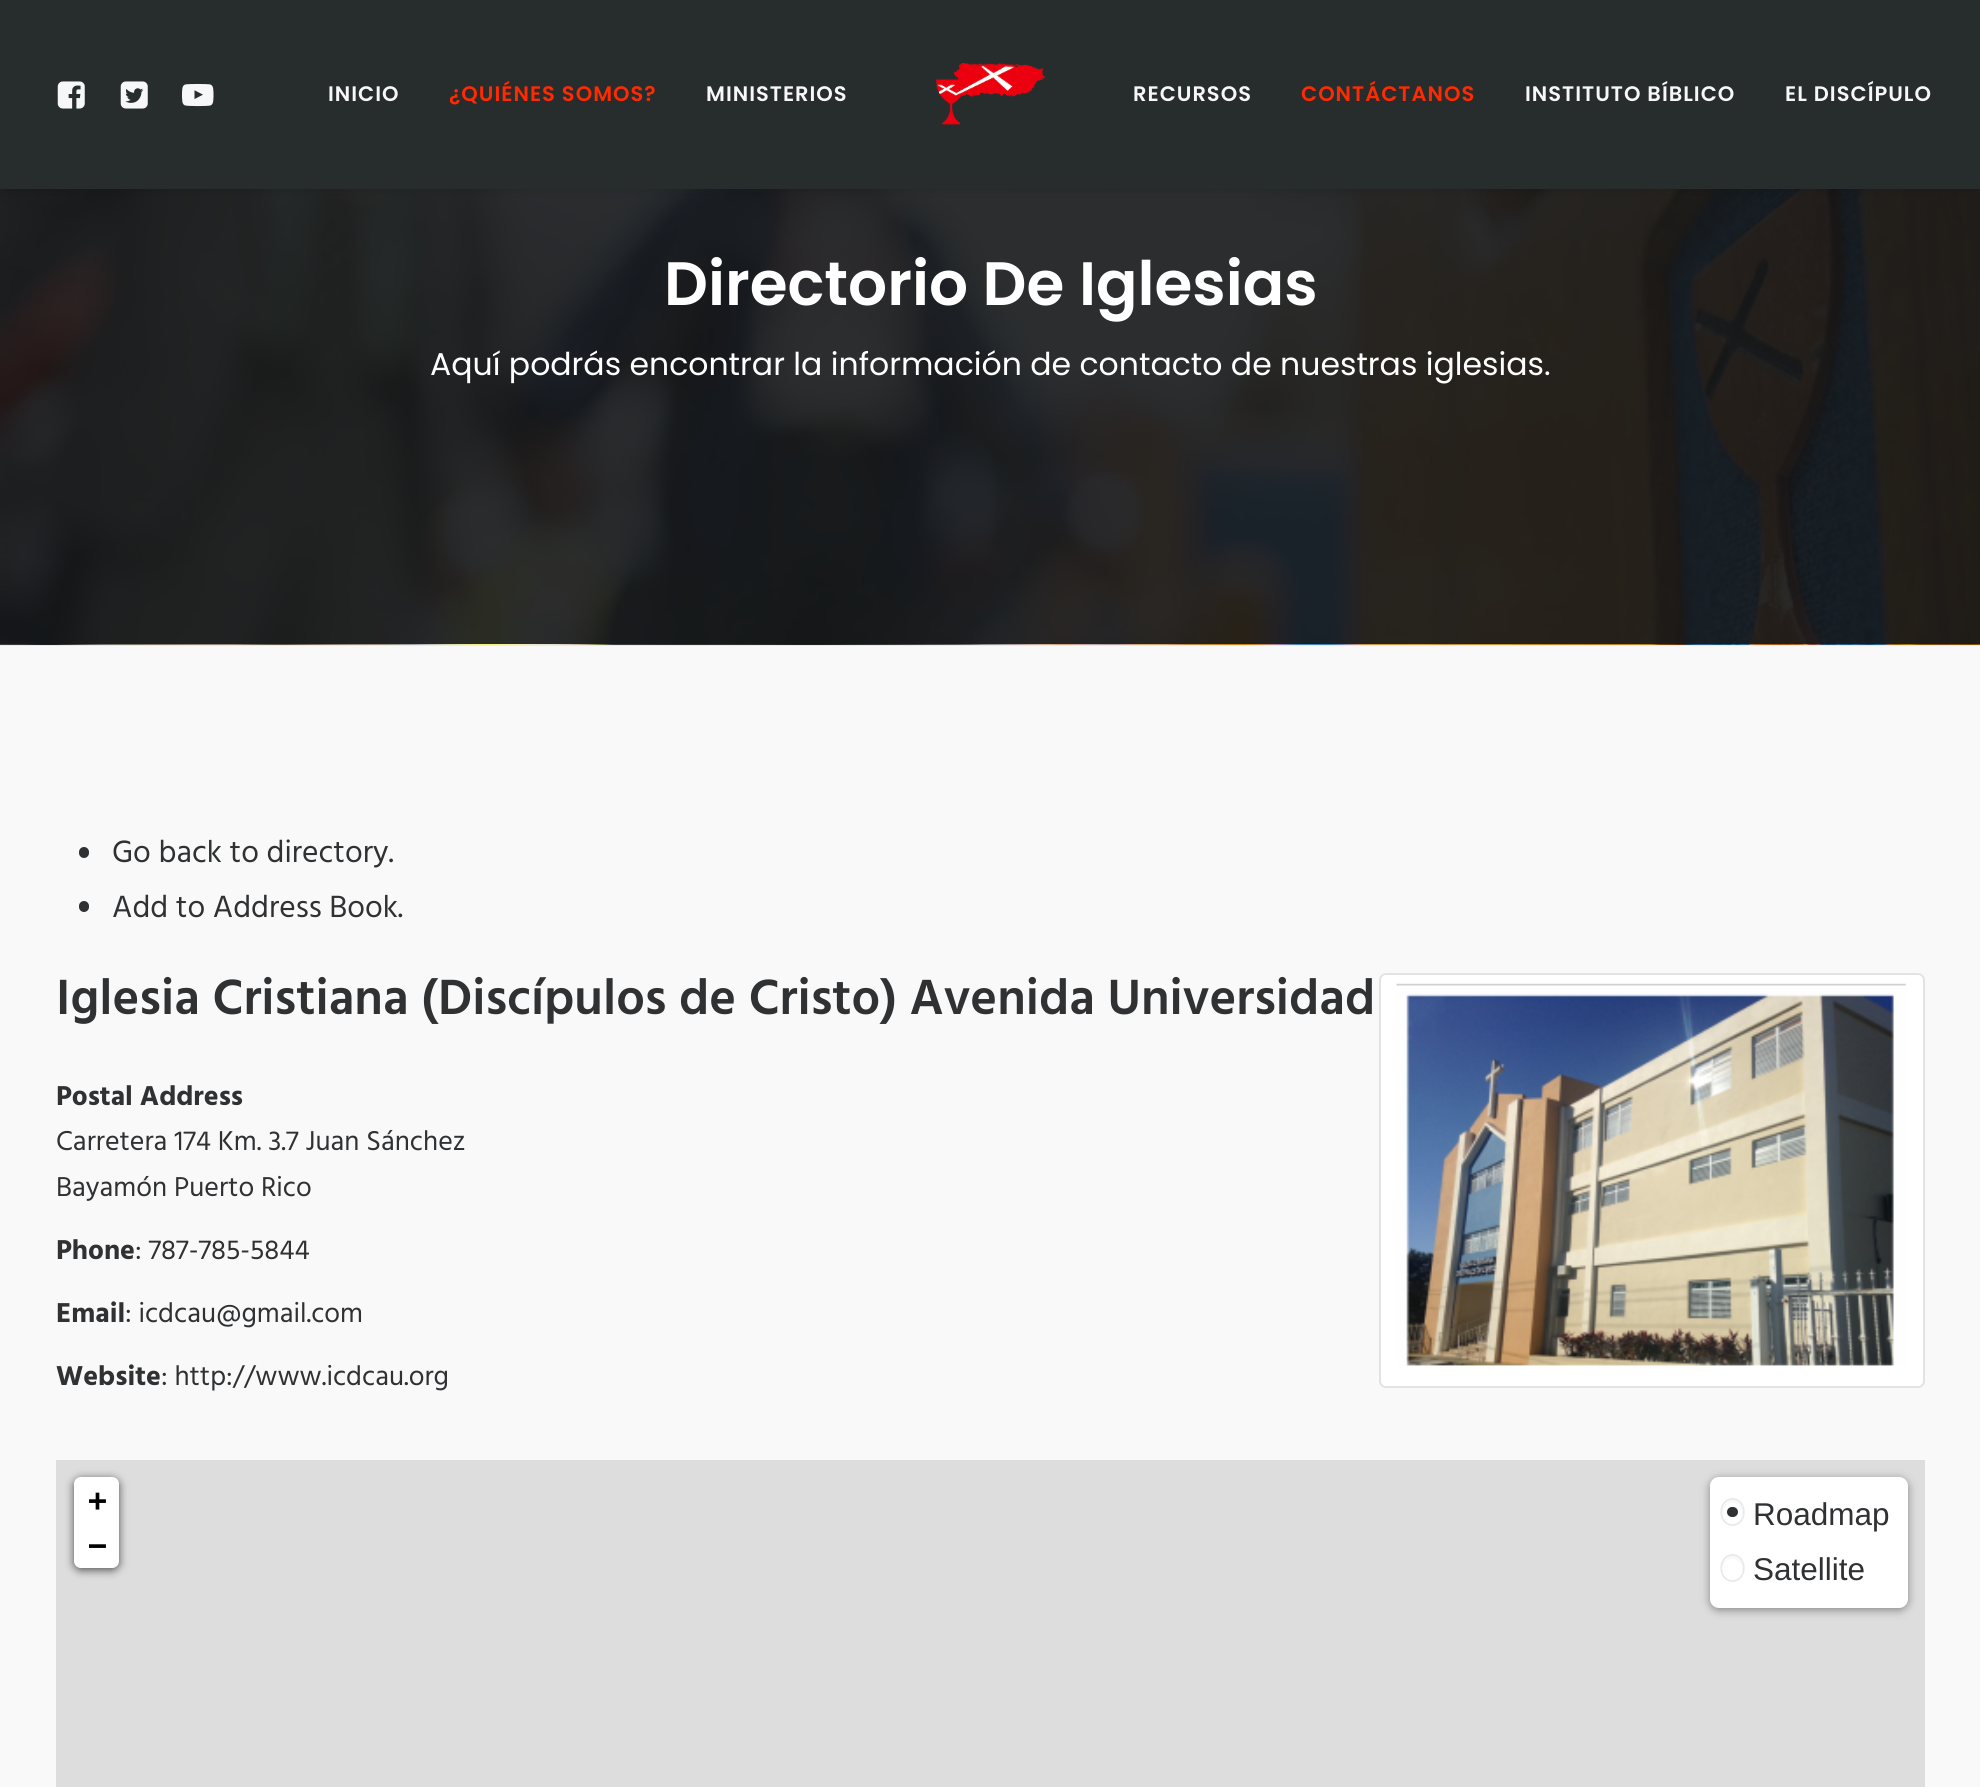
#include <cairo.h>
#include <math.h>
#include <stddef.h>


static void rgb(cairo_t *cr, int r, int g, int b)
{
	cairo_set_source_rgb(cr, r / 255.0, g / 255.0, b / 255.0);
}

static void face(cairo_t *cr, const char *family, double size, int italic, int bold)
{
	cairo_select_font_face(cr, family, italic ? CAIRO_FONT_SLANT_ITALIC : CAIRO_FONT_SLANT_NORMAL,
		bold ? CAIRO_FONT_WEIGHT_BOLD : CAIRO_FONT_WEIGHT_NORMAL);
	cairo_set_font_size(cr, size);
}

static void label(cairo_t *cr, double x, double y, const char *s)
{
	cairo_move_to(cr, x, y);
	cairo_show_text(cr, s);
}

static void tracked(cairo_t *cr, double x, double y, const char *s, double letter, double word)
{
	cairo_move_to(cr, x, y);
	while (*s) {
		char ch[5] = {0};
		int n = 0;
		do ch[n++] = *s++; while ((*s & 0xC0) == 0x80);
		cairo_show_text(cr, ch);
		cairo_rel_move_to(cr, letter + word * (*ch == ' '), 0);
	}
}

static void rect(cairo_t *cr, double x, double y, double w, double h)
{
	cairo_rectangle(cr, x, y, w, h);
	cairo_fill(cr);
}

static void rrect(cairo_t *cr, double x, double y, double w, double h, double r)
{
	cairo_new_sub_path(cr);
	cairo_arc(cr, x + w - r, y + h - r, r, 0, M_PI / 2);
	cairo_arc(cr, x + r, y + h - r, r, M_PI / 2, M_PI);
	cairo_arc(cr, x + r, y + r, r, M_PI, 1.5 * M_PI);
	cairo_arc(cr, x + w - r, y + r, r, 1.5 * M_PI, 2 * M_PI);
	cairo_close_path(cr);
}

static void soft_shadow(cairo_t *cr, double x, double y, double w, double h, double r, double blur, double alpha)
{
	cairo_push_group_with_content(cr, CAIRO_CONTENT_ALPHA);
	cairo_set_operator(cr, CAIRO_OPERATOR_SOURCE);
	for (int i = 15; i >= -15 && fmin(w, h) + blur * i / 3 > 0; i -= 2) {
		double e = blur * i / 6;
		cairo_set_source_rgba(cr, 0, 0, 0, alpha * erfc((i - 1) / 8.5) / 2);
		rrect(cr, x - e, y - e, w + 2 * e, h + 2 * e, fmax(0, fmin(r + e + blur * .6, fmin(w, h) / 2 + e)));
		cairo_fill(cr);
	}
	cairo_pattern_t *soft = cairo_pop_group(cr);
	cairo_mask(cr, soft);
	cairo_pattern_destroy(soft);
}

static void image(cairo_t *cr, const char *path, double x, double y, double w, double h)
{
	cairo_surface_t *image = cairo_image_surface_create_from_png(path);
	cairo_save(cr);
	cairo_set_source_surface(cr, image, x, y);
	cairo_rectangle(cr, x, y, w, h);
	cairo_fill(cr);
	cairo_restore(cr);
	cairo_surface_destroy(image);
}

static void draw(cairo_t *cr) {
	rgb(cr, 234, 234, 234);
	cairo_paint(cr);
	image(cr, "image4.png", 0, 189, 1980, 456);
	rgb(cr, 0, 0, 0);
	soft_shadow(cr, 11, 25, 1960, 154, 0, 9, 0.6);
	rgb(cr, 39, 45, 45);
	rect(cr, 0, 0, 1980, 189);
	image(cr, "image0.png", 57, 81, 28, 28);
	image(cr, "image1.png", 120, 81, 28, 28);
	image(cr, "image2.png", 182, 83, 32, 24);
	face(cr, "Poppins SemiBold", 21, 0, 0);
	rgb(cr, 247, 247, 247);
	tracked(cr, 328, 101, "INICIO", 1, 0);
	rgb(cr, 255, 42, 0);
	tracked(cr, 449, 101, "¿QUIÉNES SOMOS?", 1, 0);
	rgb(cr, 247, 247, 247);
	tracked(cr, 706, 101, "MINISTERIOS", 1, 0);
	image(cr, "image3.png", 936, 63, 109, 62);
	tracked(cr, 1133, 101, "RECURSOS", 1, 0);
	rgb(cr, 255, 42, 0);
	tracked(cr, 1301, 101, "CONTÁCTANOS", 1, 0);
	rgb(cr, 247, 247, 247);
	tracked(cr, 1525, 101, "INSTITUTO BÍBLICO", 1, 0);
	tracked(cr, 1785, 101, "EL DISCÍPULO", 1, 0);
	face(cr, "Poppins SemiBold", 61.25, 0, 0);
	rgb(cr, 255, 255, 255);
	label(cr, 664, 305, "Directorio De Iglesias");
	face(cr, "Poppins", 31.5, 0, 0);
	label(cr, 430, 375, "Aquí podrás encontrar la información de contacto de nuestras iglesias.");
	rgb(cr, 249, 249, 249);
	rect(cr, 0, 646, 1980, 1141);
	rgb(cr, 48, 49, 51);
	rrect(cr, 79, 847, 10, 11, 5);
	cairo_fill(cr);
	face(cr, "Hind", 31.5, 0, 0);
	label(cr, 112, 862, "Go back to directory.");
	rrect(cr, 79, 901, 10, 11, 5);
	cairo_fill(cr);
	label(cr, 112, 917, "Add to Address Book.");
	face(cr, "Hind SemiBold", 50.75, 0, 0);
	label(cr, 56, 1014, "Iglesia Cristiana (Discípulos de Cristo) Avenida Universidad");
	face(cr, "Hind", 28, 0, 1);
	label(cr, 56, 1105, "Postal Address");
	face(cr, "Hind", 28, 0, 0);
	label(cr, 56, 1150, "Carretera 174 Km. 3.7 Juan Sánchez");
	label(cr, 56, 1196, "Bayamón Puerto Rico");
	face(cr, "Hind", 28, 0, 1);
	label(cr, 56, 1259, "Phone");
	face(cr, "Hind", 28, 0, 0);
	label(cr, 135, 1259, ": 787-785-5844");
	face(cr, "Hind", 28, 0, 1);
	label(cr, 56, 1322, "Email");
	face(cr, "Hind", 28, 0, 0);
	label(cr, 125, 1322, ": icdcau@gmail.com");
	face(cr, "Hind", 28, 0, 1);
	label(cr, 56, 1385, "Website");
	face(cr, "Hind", 28, 0, 0);
	label(cr, 161, 1385, ": http://www.icdcau.org");
	rgb(cr, 255, 255, 255);
	rrect(cr, 1380, 974, 544, 413, 6);
	cairo_fill_preserve(cr);
	rgb(cr, 227, 227, 227);
	cairo_stroke(cr);
	image(cr, "image5.png", 1396, 983, 511, 383);
	rgb(cr, 221, 221, 221);
	rect(cr, 56, 1460, 1869, 327);
	rgb(cr, 0, 0, 0);
	soft_shadow(cr, 74, 1479, 45, 91, 7, 4.5, 0.65);
	rgb(cr, 255, 255, 255);
	cairo_new_path(cr);
	cairo_move_to(cr, 81, 1477);
	cairo_line_to(cr, 112, 1477);
	cairo_curve_to(cr, 116, 1477, 119, 1480, 119, 1484);
	cairo_line_to(cr, 119, 1523);
	cairo_line_to(cr, 74, 1523);
	cairo_line_to(cr, 74, 1484);
	cairo_curve_to(cr, 74, 1480, 77, 1477, 81, 1477);
	cairo_close_path(cr);
	cairo_fill(cr);
	face(cr, "DejaVu Sans Mono", 31.5, 0, 1);
	rgb(cr, 0, 0, 0);
	label(cr, 88, 1511, "+");
	rgb(cr, 255, 255, 255);
	cairo_new_path(cr);
	cairo_move_to(cr, 74, 1523);
	cairo_line_to(cr, 119, 1523);
	cairo_line_to(cr, 119, 1561);
	cairo_curve_to(cr, 119, 1565, 116, 1568, 112, 1568);
	cairo_line_to(cr, 81, 1568);
	cairo_curve_to(cr, 77, 1568, 74, 1565, 74, 1561);
	cairo_close_path(cr);
	cairo_fill(cr);
	rgb(cr, 0, 0, 0);
	label(cr, 88, 1556, "−");
	rgb(cr, 0, 0, 0);
	soft_shadow(cr, 1710, 1479, 198, 131, 9, 4.5, 0.4);
	rgb(cr, 255, 255, 255);
	rrect(cr, 1710, 1477, 198, 131, 9);
	cairo_fill(cr);
	rgb(cr, 249, 249, 249);
	cairo_new_path(cr);
	cairo_move_to(cr, 1732, 1503);
	cairo_curve_to(cr, 1739, 1503, 1742.5, 1509.5, 1742.5, 1516);
	cairo_curve_to(cr, 1746, 1503, 1731, 1493, 1724, 1505);
	cairo_curve_to(cr, 1722, 1508, 1721.5, 1511.5, 1722.5, 1515);
	cairo_curve_to(cr, 1722.5, 1509, 1726, 1503, 1732, 1503);
	cairo_close_path(cr);
	cairo_fill(cr);
	cairo_new_path(cr);
	cairo_move_to(cr, 1732.5, 1499);
	cairo_curve_to(cr, 1747.5, 1499, 1747.5, 1525, 1732.5, 1525);
	cairo_curve_to(cr, 1717.5, 1525, 1717.5, 1499, 1732.5, 1499);
	cairo_close_path(cr);
	rgb(cr, 234, 234, 234);
	cairo_set_line_width(cr, 1.8);
	cairo_stroke(cr);
	rgb(cr, 48, 49, 51);
	rrect(cr, 1727, 1507, 11, 10, 5);
	cairo_fill(cr);
	face(cr, "Liberation Sans", 31.5, 0, 0);
	label(cr, 1753, 1525, "Roadmap");
	rgb(cr, 249, 249, 249);
	cairo_new_path(cr);
	cairo_move_to(cr, 1732, 1559);
	cairo_curve_to(cr, 1739, 1559, 1742.5, 1565.5, 1742.5, 1572);
	cairo_curve_to(cr, 1746, 1559, 1731, 1549, 1724, 1561);
	cairo_curve_to(cr, 1722, 1564, 1721.5, 1567.5, 1722.5, 1571);
	cairo_curve_to(cr, 1722.5, 1565, 1726, 1559, 1732, 1559);
	cairo_close_path(cr);
	cairo_fill(cr);
	cairo_new_path(cr);
	cairo_move_to(cr, 1732.5, 1555);
	cairo_curve_to(cr, 1747.5, 1555, 1747.5, 1581, 1732.5, 1581);
	cairo_curve_to(cr, 1717.5, 1581, 1717.5, 1555, 1732.5, 1555);
	cairo_close_path(cr);
	rgb(cr, 234, 234, 234);
	cairo_stroke(cr);
	rgb(cr, 48, 49, 51);
	label(cr, 1753, 1580, "Satellite");
}

int main(void) {
	cairo_surface_t *surface = cairo_image_surface_create(CAIRO_FORMAT_RGB24, 1980, 1787);
	cairo_t *cr = cairo_create(surface);
	cairo_font_options_t *options = cairo_font_options_create();
	cairo_font_options_set_hint_metrics(options, CAIRO_HINT_METRICS_OFF);
	cairo_font_options_set_hint_style(options, CAIRO_HINT_STYLE_NONE);
	cairo_set_font_options(cr, options);
	cairo_set_miter_limit(cr, 4);
	draw(cr);
	cairo_surface_write_to_png(surface, "render.png");
	cairo_font_options_destroy(options);
	cairo_destroy(cr);
	cairo_surface_destroy(surface);
	return 0;
}
